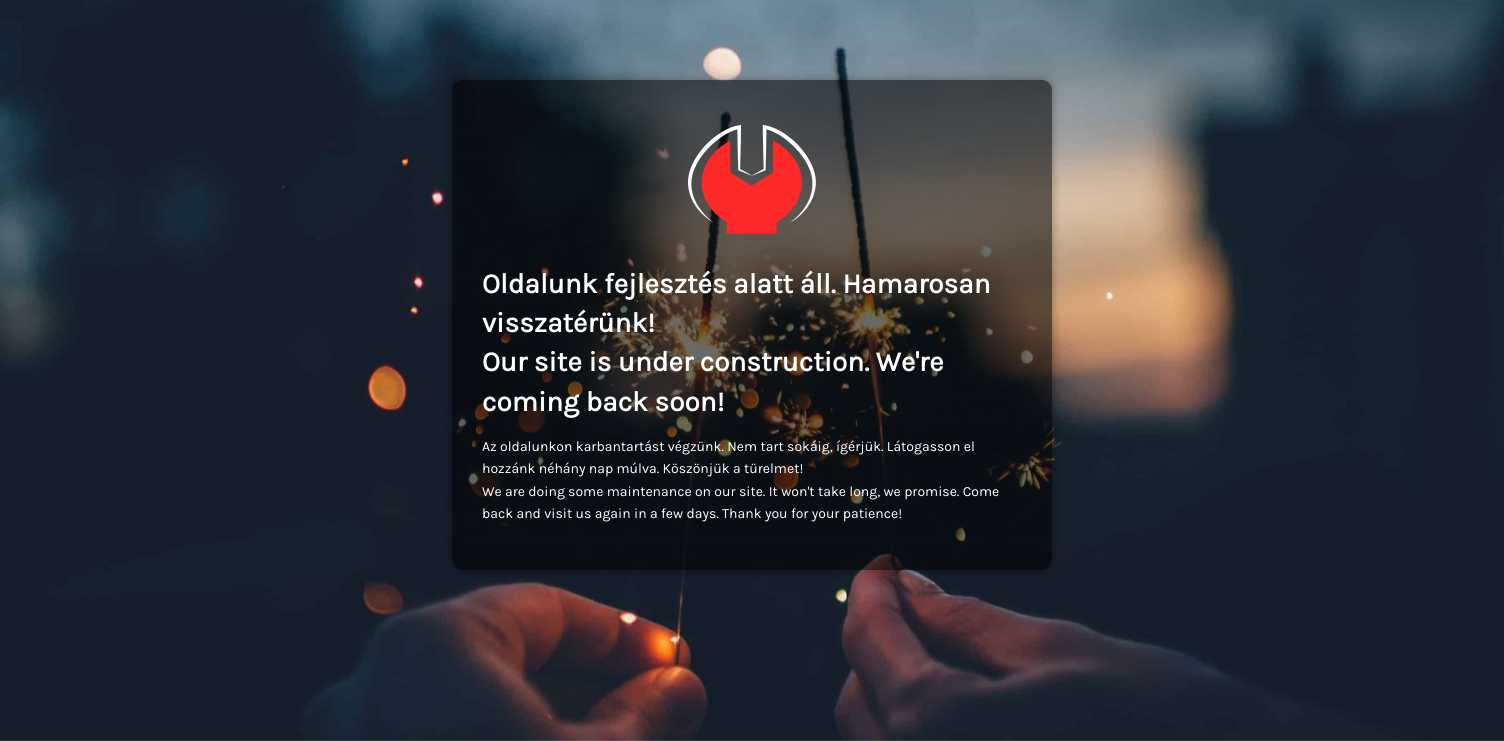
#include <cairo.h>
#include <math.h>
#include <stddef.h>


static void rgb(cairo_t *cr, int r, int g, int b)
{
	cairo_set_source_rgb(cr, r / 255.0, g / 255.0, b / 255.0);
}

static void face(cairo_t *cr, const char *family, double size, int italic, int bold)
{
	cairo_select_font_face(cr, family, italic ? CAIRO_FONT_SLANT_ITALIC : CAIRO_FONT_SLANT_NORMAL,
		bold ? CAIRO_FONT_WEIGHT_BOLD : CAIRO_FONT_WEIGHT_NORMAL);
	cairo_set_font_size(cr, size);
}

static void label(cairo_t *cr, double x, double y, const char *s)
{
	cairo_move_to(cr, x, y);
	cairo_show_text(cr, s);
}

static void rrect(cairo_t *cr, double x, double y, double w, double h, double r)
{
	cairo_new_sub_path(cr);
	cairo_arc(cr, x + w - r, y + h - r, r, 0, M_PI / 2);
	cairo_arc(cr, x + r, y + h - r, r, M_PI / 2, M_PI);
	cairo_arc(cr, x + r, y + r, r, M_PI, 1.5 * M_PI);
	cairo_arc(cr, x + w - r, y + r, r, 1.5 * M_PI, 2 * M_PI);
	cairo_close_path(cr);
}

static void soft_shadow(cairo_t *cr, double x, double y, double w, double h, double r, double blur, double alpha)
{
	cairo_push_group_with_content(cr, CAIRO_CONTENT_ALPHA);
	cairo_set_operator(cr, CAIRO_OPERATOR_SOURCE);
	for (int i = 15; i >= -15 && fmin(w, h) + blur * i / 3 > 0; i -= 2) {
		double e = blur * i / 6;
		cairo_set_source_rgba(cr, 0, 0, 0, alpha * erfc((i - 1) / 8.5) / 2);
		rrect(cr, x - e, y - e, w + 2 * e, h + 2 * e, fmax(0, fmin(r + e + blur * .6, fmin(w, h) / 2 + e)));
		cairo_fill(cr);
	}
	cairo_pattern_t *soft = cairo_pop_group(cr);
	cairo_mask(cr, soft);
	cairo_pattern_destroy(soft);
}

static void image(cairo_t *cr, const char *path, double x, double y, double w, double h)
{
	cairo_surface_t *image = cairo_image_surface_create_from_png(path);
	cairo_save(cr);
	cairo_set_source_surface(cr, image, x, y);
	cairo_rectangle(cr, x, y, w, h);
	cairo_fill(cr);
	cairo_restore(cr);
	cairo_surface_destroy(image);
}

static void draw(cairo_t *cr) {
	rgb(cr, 255, 255, 255);
	cairo_paint(cr);
	image(cr, "image0.png", 0, 0, 1504, 741);
	cairo_save(cr);
	cairo_set_fill_rule(cr, CAIRO_FILL_RULE_EVEN_ODD);
	cairo_new_path(cr);
	cairo_move_to(cr, 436, 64);
	cairo_line_to(cr, 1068, 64);
	cairo_line_to(cr, 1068, 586);
	cairo_line_to(cr, 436, 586);
	cairo_close_path(cr);
	cairo_move_to(cr, 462, 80);
	cairo_line_to(cr, 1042, 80);
	cairo_curve_to(cr, 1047.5, 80, 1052, 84.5, 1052, 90);
	cairo_line_to(cr, 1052, 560);
	cairo_curve_to(cr, 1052, 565.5, 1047.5, 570, 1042, 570);
	cairo_line_to(cr, 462, 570);
	cairo_curve_to(cr, 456.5, 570, 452, 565.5, 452, 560);
	cairo_line_to(cr, 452, 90);
	cairo_curve_to(cr, 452, 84.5, 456.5, 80, 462, 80);
	cairo_close_path(cr);
	cairo_clip(cr);
	rgb(cr, 0, 0, 0);
	soft_shadow(cr, 452, 80, 600, 490, 10, 5, 0.33);
	cairo_restore(cr);
	cairo_set_source_rgba(cr, 0, 0, 0, 0.55);
	rrect(cr, 452, 80, 600, 490, 10);
	cairo_fill(cr);
	image(cr, "image1.png", 688, 125, 128, 109);
	face(cr, "Karla", 28, 0, 1);
	rgb(cr, 255, 255, 255);
	label(cr, 482, 293, "Oldalunk fejlesztés alatt áll. Hamarosan");
	label(cr, 482, 332, "visszatérünk!");
	label(cr, 482, 371, "Our site is under construction. We're");
	label(cr, 482, 411, "coming back soon!");
	face(cr, "Karla", 14, 0, 0);
	label(cr, 482, 451, "Az oldalunkon karbantartást végzünk. Nem tart sokáig, ígérjük. Látogasson el");
	label(cr, 482, 473, "hozzánk néhány nap múlva. Köszönjük a türelmet!");
	label(cr, 482, 496, "We are doing some maintenance on our site. It won't take long, we promise. Come");
	label(cr, 482, 518, "back and visit us again in a few days. Thank you for your patience!");
}

int main(void) {
	cairo_surface_t *surface = cairo_image_surface_create(CAIRO_FORMAT_RGB24, 1504, 741);
	cairo_t *cr = cairo_create(surface);
	cairo_font_options_t *options = cairo_font_options_create();
	cairo_font_options_set_hint_metrics(options, CAIRO_HINT_METRICS_OFF);
	cairo_font_options_set_hint_style(options, CAIRO_HINT_STYLE_NONE);
	cairo_set_font_options(cr, options);
	cairo_set_miter_limit(cr, 4);
	draw(cr);
	cairo_surface_write_to_png(surface, "render.png");
	cairo_font_options_destroy(options);
	cairo_destroy(cr);
	cairo_surface_destroy(surface);
	return 0;
}
